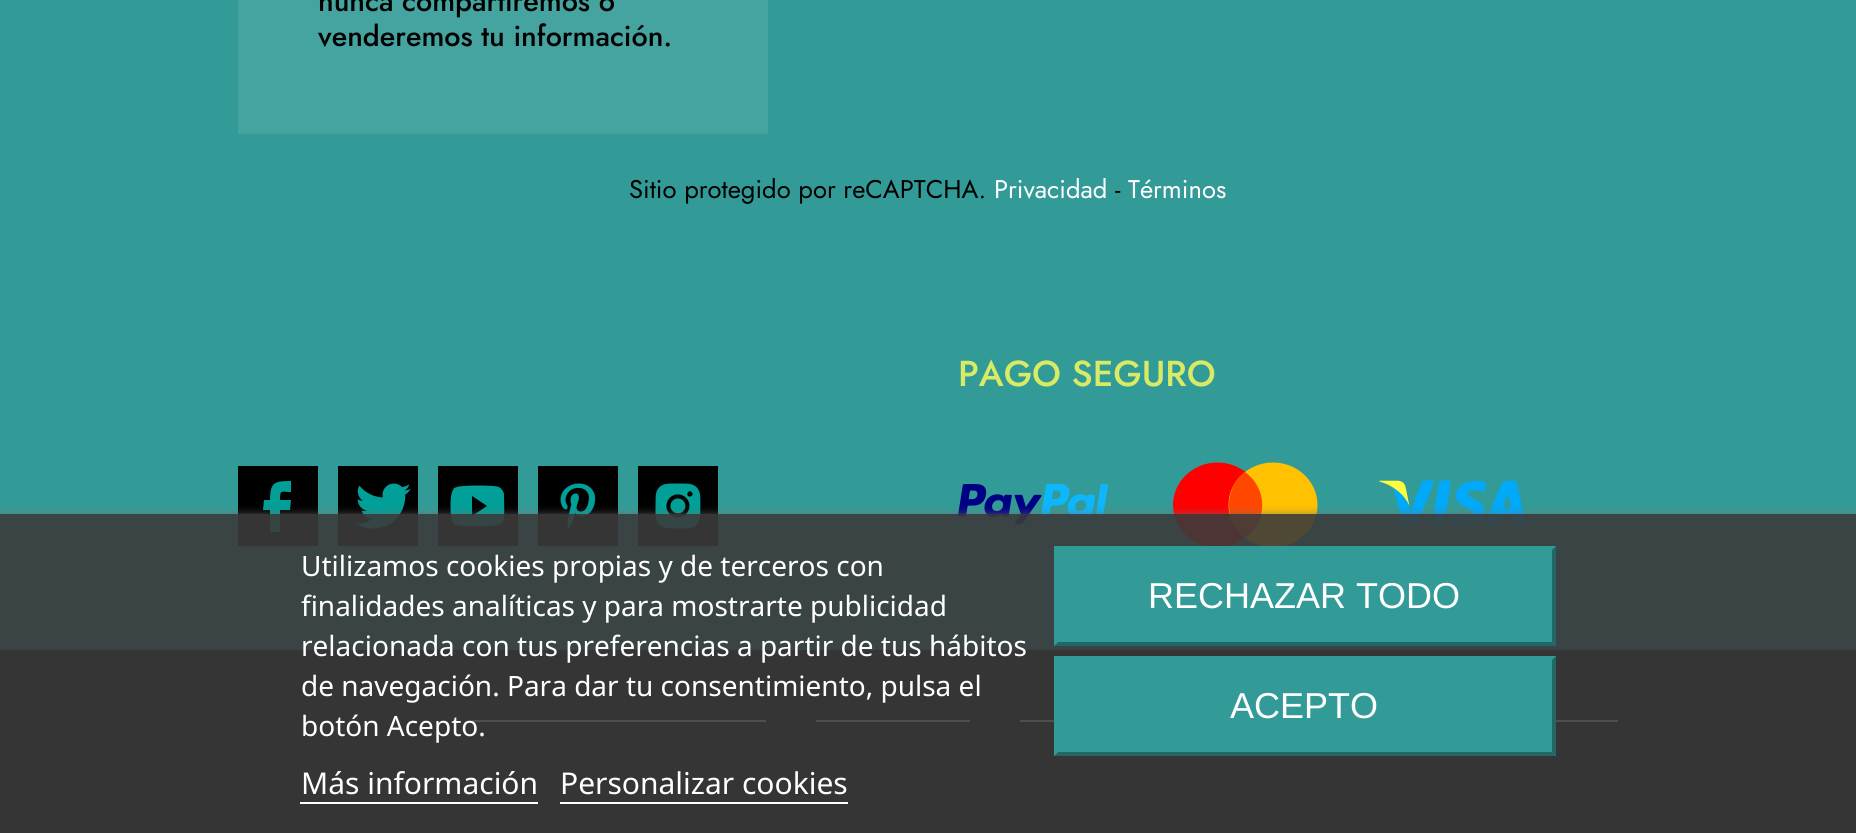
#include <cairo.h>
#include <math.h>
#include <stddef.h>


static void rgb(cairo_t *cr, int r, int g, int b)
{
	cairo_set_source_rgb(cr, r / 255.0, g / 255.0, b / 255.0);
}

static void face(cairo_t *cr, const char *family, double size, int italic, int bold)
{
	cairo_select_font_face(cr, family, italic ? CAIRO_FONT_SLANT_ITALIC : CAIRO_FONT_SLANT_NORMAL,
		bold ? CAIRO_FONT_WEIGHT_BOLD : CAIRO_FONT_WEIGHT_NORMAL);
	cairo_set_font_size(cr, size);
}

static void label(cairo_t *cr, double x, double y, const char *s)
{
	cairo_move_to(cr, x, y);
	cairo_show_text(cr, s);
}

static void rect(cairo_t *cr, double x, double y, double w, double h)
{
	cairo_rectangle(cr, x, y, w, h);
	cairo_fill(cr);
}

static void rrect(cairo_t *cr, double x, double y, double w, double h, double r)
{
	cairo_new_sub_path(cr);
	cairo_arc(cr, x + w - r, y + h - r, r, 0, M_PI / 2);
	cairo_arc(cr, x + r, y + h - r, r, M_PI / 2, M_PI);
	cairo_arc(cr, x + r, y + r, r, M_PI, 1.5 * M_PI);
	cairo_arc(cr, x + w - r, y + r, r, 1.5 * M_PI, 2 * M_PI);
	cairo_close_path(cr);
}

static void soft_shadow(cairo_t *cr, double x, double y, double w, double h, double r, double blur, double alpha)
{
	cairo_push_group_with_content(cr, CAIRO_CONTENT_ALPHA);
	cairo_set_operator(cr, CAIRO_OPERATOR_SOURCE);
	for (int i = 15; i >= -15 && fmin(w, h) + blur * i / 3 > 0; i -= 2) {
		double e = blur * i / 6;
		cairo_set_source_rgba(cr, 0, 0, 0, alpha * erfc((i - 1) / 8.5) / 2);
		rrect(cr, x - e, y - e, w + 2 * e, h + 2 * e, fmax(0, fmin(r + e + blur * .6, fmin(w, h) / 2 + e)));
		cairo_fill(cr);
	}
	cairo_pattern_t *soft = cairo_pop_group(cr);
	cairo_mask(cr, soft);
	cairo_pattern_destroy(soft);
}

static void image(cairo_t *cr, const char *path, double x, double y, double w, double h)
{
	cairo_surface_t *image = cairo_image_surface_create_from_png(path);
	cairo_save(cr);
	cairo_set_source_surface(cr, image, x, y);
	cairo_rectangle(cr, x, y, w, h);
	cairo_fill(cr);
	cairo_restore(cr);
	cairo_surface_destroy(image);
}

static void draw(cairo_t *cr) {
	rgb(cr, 51, 155, 151);
	cairo_paint(cr);
	rgb(cr, 70, 164, 160);
	rect(cr, 238, 0, 530, 134);
	face(cr, "Jost Medium", 28.75, 0, 0);
	rgb(cr, 0, 0, 0);
	label(cr, 318, 11, "nunca compartiremos o");
	label(cr, 318, 46, "venderemos tu información.");
	face(cr, "Jost", 25.6, 0, 0);
	label(cr, 629, 198, "Sitio protegido por reCAPTCHA.");
	rgb(cr, 255, 255, 255);
	label(cr, 994, 198, "Privacidad");
	rgb(cr, 0, 0, 0);
	label(cr, 1115, 198, "-");
	rgb(cr, 255, 255, 255);
	label(cr, 1128, 198, "Términos");
	image(cr, "image0.png", 958, 484, 150, 40);
	rgb(cr, 255, 0, 0);
	cairo_new_path(cr);
	cairo_move_to(cr, 1217.5, 462.5);
	cairo_curve_to(cr, 1242, 462.5, 1262, 481.5, 1262, 505);
	cairo_curve_to(cr, 1262, 528.5, 1242, 547.5, 1217.5, 547.5);
	cairo_curve_to(cr, 1193, 547.5, 1173, 528.5, 1173, 505);
	cairo_curve_to(cr, 1173, 481.5, 1193, 462.5, 1217.5, 462.5);
	cairo_close_path(cr);
	cairo_fill(cr);
	rgb(cr, 255, 193, 0);
	cairo_new_path(cr);
	cairo_move_to(cr, 1273, 462.5);
	cairo_curve_to(cr, 1297.5, 462.5, 1317.5, 481.5, 1317.5, 505);
	cairo_curve_to(cr, 1317.5, 528.5, 1297.5, 547.5, 1273, 547.5);
	cairo_curve_to(cr, 1248.5, 547.5, 1228.5, 528.5, 1228.5, 505);
	cairo_curve_to(cr, 1228.5, 481.5, 1248.5, 462.5, 1273, 462.5);
	cairo_close_path(cr);
	cairo_fill(cr);
	rgb(cr, 255, 71, 0);
	cairo_new_path(cr);
	cairo_move_to(cr, 1229, 505);
	cairo_curve_to(cr, 1229, 519, 1235, 531, 1245, 538);
	cairo_curve_to(cr, 1268, 521, 1268, 489, 1245, 472);
	cairo_curve_to(cr, 1235, 479, 1229, 492, 1229, 505);
	cairo_close_path(cr);
	cairo_fill(cr);
	image(cr, "image1.png", 1379, 480, 147, 47);
	rgb(cr, 0, 0, 0);
	rect(cr, 238, 466, 80, 80);
	rgb(cr, 0, 160, 152);
	cairo_new_path(cr);
	cairo_move_to(cr, 270, 532);
	cairo_line_to(cr, 280, 532);
	cairo_line_to(cr, 280, 510);
	cairo_line_to(cr, 290, 510);
	cairo_line_to(cr, 291, 500);
	cairo_line_to(cr, 280, 500);
	cairo_curve_to(cr, 280, 489, 281, 492, 291, 492);
	cairo_line_to(cr, 291, 481);
	cairo_curve_to(cr, 275, 481, 270, 482, 270, 500);
	cairo_line_to(cr, 264, 500);
	cairo_line_to(cr, 263, 510);
	cairo_line_to(cr, 270, 510);
	cairo_close_path(cr);
	cairo_fill(cr);
	image(cr, "image2.png", 338, 466, 80, 80);
	rgb(cr, 0, 0, 0);
	rect(cr, 438, 466, 80, 80);
	rgb(cr, 0, 160, 152);
	cairo_new_path(cr);
	cairo_move_to(cr, 504, 495);
	cairo_curve_to(cr, 504, 492, 502, 489, 499, 487);
	cairo_curve_to(cr, 495, 485, 462, 485, 457, 487);
	cairo_line_to(cr, 454, 488);
	cairo_line_to(cr, 452, 492);
	cairo_curve_to(cr, 450, 496, 450, 516, 452, 520);
	cairo_curve_to(cr, 452, 523, 455, 525, 457, 525);
	cairo_curve_to(cr, 462, 527, 493, 527, 498, 525);
	cairo_curve_to(cr, 500, 525, 501, 524, 503, 522);
	cairo_curve_to(cr, 505, 517, 504, 500, 504, 495);
	cairo_close_path(cr);
	cairo_move_to(cr, 472, 516);
	cairo_line_to(cr, 472, 496);
	cairo_line_to(cr, 487, 506);
	cairo_close_path(cr);
	cairo_fill(cr);
	image(cr, "image3.png", 538, 466, 80, 80);
	image(cr, "image4.png", 638, 466, 80, 80);
	rgb(cr, 0, 0, 0);
	rect(cr, 0, 650, 1856, 183);
	rgb(cr, 255, 255, 255);
	rect(cr, 472, 720, 294, 2);
	rect(cr, 816, 720, 154, 2);
	rect(cr, 1020, 720, 34, 2);
	rect(cr, 1556, 720, 62, 2);
	cairo_save(cr);
	cairo_rectangle(cr, 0, 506, 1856, 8);
	cairo_clip(cr);
	rgb(cr, 112, 112, 112);
	soft_shadow(cr, 0, 516, 1856, 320, 0, 5, 1);
	cairo_restore(cr);
	cairo_set_source_rgba(cr, 0.231, 0.231, 0.231, 0.9);
	rect(cr, 0, 514, 1856, 319);
	face(cr, "Noto Sans", 28, 0, 0);
	rgb(cr, 255, 255, 255);
	label(cr, 301, 576, "Utilizamos cookies propias y de terceros con");
	label(cr, 301, 616, "finalidades analíticas y para mostrarte publicidad");
	label(cr, 301, 656, "relacionada con tus preferencias a partir de tus hábitos");
	label(cr, 301, 696, "de navegación. Para dar tu consentimiento, pulsa el");
	label(cr, 301, 736, "botón Acepto.");
	face(cr, "Noto Sans", 30, 0, 0);
	label(cr, 301, 794, "Más información");
	rect(cr, 300, 802, 238, 2);
	label(cr, 560, 794, "Personalizar cookies");
	rect(cr, 560, 802, 288, 2);
	rgb(cr, 51, 155, 151);
	rect(cr, 1054, 546, 502, 100);
	rgb(cr, 34, 103, 101);
	cairo_new_path(cr);
	cairo_move_to(cr, 1556, 546);
	cairo_line_to(cr, 1556, 646);
	cairo_line_to(cr, 1552, 642);
	cairo_line_to(cr, 1552, 550);
	cairo_close_path(cr);
	cairo_fill(cr);
	cairo_new_path(cr);
	cairo_move_to(cr, 1556, 646);
	cairo_line_to(cr, 1054, 646);
	cairo_line_to(cr, 1058, 642);
	cairo_line_to(cr, 1552, 642);
	cairo_close_path(cr);
	cairo_fill(cr);
	rgb(cr, 51, 155, 151);
	cairo_new_path(cr);
	cairo_move_to(cr, 1054, 646);
	cairo_line_to(cr, 1054, 546);
	cairo_line_to(cr, 1058, 550);
	cairo_line_to(cr, 1058, 642);
	cairo_close_path(cr);
	cairo_fill(cr);
	face(cr, "Liberation Sans", 36, 0, 0);
	rgb(cr, 255, 255, 255);
	label(cr, 1148, 608, "RECHAZAR TODO");
	rgb(cr, 51, 155, 151);
	rect(cr, 1054, 656, 502, 100);
	rgb(cr, 34, 103, 101);
	cairo_new_path(cr);
	cairo_move_to(cr, 1556, 656);
	cairo_line_to(cr, 1556, 756);
	cairo_line_to(cr, 1552, 752);
	cairo_line_to(cr, 1552, 660);
	cairo_close_path(cr);
	cairo_fill(cr);
	cairo_new_path(cr);
	cairo_move_to(cr, 1556, 756);
	cairo_line_to(cr, 1054, 756);
	cairo_line_to(cr, 1058, 752);
	cairo_line_to(cr, 1552, 752);
	cairo_close_path(cr);
	cairo_fill(cr);
	rgb(cr, 51, 155, 151);
	cairo_new_path(cr);
	cairo_move_to(cr, 1054, 756);
	cairo_line_to(cr, 1054, 656);
	cairo_line_to(cr, 1058, 660);
	cairo_line_to(cr, 1058, 752);
	cairo_close_path(cr);
	cairo_fill(cr);
	rgb(cr, 255, 255, 255);
	label(cr, 1230, 718, "ACEPTO");
	face(cr, "Jost Medium", 36, 0, 0);
	rgb(cr, 217, 234, 101);
	label(cr, 958, 386, "PAGO SEGURO");
}

int main(void) {
	cairo_surface_t *surface = cairo_image_surface_create(CAIRO_FORMAT_RGB24, 1856, 833);
	cairo_t *cr = cairo_create(surface);
	cairo_font_options_t *options = cairo_font_options_create();
	cairo_font_options_set_hint_metrics(options, CAIRO_HINT_METRICS_OFF);
	cairo_font_options_set_hint_style(options, CAIRO_HINT_STYLE_NONE);
	cairo_set_font_options(cr, options);
	cairo_set_miter_limit(cr, 4);
	draw(cr);
	cairo_surface_write_to_png(surface, "render.png");
	cairo_font_options_destroy(options);
	cairo_destroy(cr);
	cairo_surface_destroy(surface);
	return 0;
}
